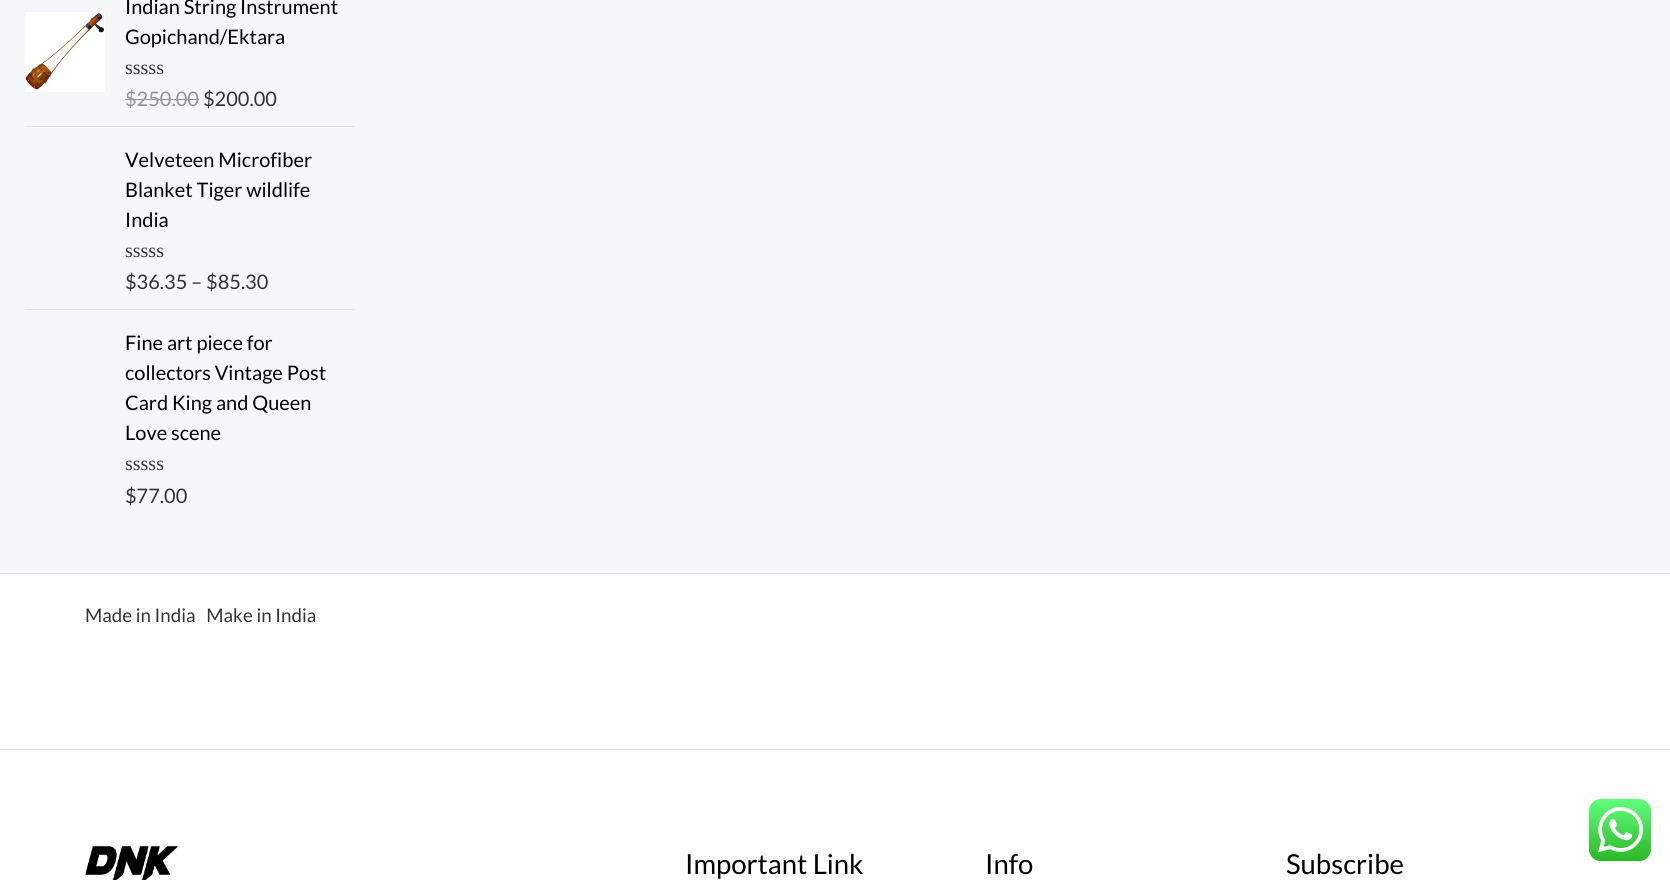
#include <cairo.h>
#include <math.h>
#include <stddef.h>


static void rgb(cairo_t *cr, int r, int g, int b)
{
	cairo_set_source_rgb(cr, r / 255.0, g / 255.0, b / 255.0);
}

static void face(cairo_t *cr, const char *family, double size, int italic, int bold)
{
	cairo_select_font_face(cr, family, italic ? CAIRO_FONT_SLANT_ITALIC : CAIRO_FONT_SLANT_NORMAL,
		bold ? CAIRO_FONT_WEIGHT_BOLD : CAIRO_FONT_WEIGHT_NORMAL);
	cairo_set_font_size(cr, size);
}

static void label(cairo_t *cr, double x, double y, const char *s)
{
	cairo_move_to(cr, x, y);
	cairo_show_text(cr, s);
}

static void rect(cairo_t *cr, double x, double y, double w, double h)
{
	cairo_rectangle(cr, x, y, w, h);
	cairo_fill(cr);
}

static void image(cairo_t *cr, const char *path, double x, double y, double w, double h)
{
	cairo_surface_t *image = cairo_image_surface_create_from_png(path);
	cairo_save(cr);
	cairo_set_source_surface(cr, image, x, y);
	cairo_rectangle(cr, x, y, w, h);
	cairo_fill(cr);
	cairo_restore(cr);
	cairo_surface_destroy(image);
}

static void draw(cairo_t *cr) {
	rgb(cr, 245, 247, 249);
	cairo_paint(cr);
	rgb(cr, 226, 226, 226);
	rect(cr, 25, 126, 330, 1);
	face(cr, "Lato", 20, 0, 0);
	rgb(cr, 0, 0, 0);
	label(cr, 125, 14, "Indian String Instrument");
	image(cr, "image0.png", 25, 12, 80, 80);
	label(cr, 125, 44, "Gopichand/Ektara");
	face(cr, "Liberation Serif", 20, 0, 0);
	rgb(cr, 51, 51, 51);
	label(cr, 125, 74, "sssss");
	face(cr, "Lato", 20, 0, 0);
	rgb(cr, 148, 149, 150);
	label(cr, 125, 106, "$250.00");
	rect(cr, 125, 99, 74, 1);
	rgb(cr, 51, 51, 51);
	label(cr, 203, 106, "$200.00");
	rgb(cr, 226, 226, 226);
	rect(cr, 25, 309, 330, 1);
	rgb(cr, 0, 0, 0);
	label(cr, 125, 167, "Velveteen Microfiber");
	label(cr, 125, 197, "Blanket Tiger wildlife");
	label(cr, 125, 227, "India");
	face(cr, "Liberation Serif", 20, 0, 0);
	rgb(cr, 51, 51, 51);
	label(cr, 125, 257, "sssss");
	face(cr, "Lato", 20, 0, 0);
	label(cr, 125, 289, "$36.35 – $85.30");
	rgb(cr, 0, 0, 0);
	label(cr, 125, 350, "Fine art piece for");
	label(cr, 125, 380, "collectors Vintage Post");
	label(cr, 125, 410, "Card King and Queen");
	label(cr, 125, 440, "Love scene");
	face(cr, "Liberation Serif", 20, 0, 0);
	rgb(cr, 51, 51, 51);
	label(cr, 125, 470, "sssss");
	face(cr, "Lato", 20, 0, 0);
	label(cr, 125, 503, "$77.00");
	rgb(cr, 255, 255, 255);
	rect(cr, 0, 574, 1670, 306);
	rgb(cr, 221, 221, 221);
	rect(cr, 0, 573, 1670, 1);
	face(cr, "Lato", 18.75, 0, 0);
	rgb(cr, 51, 51, 51);
	label(cr, 85, 622, "Made in India   Make in India");
	rgb(cr, 221, 221, 221);
	rect(cr, 0, 749, 1670, 1);
	image(cr, "image1.png", 85, 845, 93, 35);
	face(cr, "Lato", 27.5, 0, 0);
	rgb(cr, 0, 0, 0);
	label(cr, 685, 874, "Important Link");
	label(cr, 985, 874, "Info");
	label(cr, 1286, 874, "Subscribe");
	image(cr, "image2.png", 1589, 799, 62, 62);
}

int main(void) {
	cairo_surface_t *surface = cairo_image_surface_create(CAIRO_FORMAT_RGB24, 1670, 880);
	cairo_t *cr = cairo_create(surface);
	cairo_font_options_t *options = cairo_font_options_create();
	cairo_font_options_set_hint_metrics(options, CAIRO_HINT_METRICS_OFF);
	cairo_font_options_set_hint_style(options, CAIRO_HINT_STYLE_NONE);
	cairo_set_font_options(cr, options);
	cairo_set_miter_limit(cr, 4);
	draw(cr);
	cairo_surface_write_to_png(surface, "render.png");
	cairo_font_options_destroy(options);
	cairo_destroy(cr);
	cairo_surface_destroy(surface);
	return 0;
}
